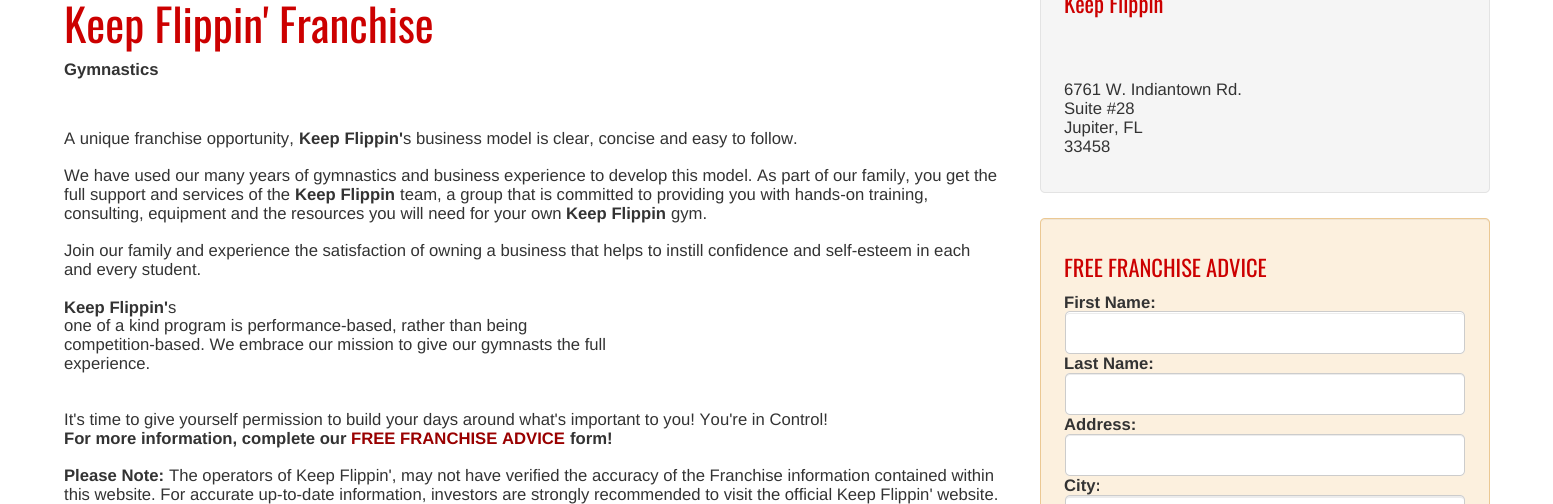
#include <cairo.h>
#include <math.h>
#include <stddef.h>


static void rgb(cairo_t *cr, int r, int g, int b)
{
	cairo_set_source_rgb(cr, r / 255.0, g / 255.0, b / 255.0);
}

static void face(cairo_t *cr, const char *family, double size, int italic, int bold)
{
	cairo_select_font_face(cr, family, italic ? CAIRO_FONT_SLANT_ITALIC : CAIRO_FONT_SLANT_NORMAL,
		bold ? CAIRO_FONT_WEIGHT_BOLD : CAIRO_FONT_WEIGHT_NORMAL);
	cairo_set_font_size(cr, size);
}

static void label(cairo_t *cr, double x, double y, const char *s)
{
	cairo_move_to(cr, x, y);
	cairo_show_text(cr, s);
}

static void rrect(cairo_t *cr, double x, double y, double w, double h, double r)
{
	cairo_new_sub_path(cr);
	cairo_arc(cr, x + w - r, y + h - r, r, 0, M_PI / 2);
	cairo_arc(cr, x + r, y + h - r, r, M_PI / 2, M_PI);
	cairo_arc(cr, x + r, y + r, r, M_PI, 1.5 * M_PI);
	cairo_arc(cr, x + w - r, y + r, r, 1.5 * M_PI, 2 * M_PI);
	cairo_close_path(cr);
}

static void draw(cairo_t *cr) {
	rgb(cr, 255, 255, 255);
	cairo_paint(cr);
	face(cr, "Oswald", 45, 0, 0);
	rgb(cr, 204, 0, 0);
	label(cr, 64, 43, "Keep Flippin' Franchise");
	face(cr, "Liberation Sans", 16.67, 0, 1);
	rgb(cr, 51, 51, 51);
	label(cr, 64, 75, "Gymnastics");
	face(cr, "Liberation Sans", 16.67, 0, 0);
	label(cr, 64, 144, "A unique franchise opportunity,");
	face(cr, "Liberation Sans", 16.67, 0, 1);
	label(cr, 299, 144, "Keep Flippin'");
	face(cr, "Liberation Sans", 16.67, 0, 0);
	label(cr, 403, 144, "s business model is clear, concise and easy to follow.");
	label(cr, 64, 181, "We have used our many years of gymnastics and business experience to develop this model. As part of our family, you get the");
	label(cr, 64, 200, "full support and services of the");
	face(cr, "Liberation Sans", 16.67, 0, 1);
	label(cr, 295, 200, "Keep Flippin");
	face(cr, "Liberation Sans", 16.67, 0, 0);
	label(cr, 400, 200, "team, a group that is committed to providing you with hands-on training,");
	label(cr, 64, 219, "consulting, equipment and the resources you will need for your own");
	face(cr, "Liberation Sans", 16.67, 0, 1);
	label(cr, 566, 219, "Keep Flippin");
	face(cr, "Liberation Sans", 16.67, 0, 0);
	label(cr, 671, 219, "gym.");
	label(cr, 64, 256, "Join our family and experience the satisfaction of owning a business that helps to instill confidence and self-esteem in each");
	label(cr, 64, 275, "and every student.");
	face(cr, "Liberation Sans", 16.67, 0, 1);
	label(cr, 64, 313, "Keep Flippin'");
	face(cr, "Liberation Sans", 16.67, 0, 0);
	label(cr, 168, 313, "s");
	label(cr, 64, 331, "one of a kind program is performance-based, rather than being");
	label(cr, 64, 350, "competition-based. We embrace our mission to give our gymnasts the full");
	label(cr, 64, 369, "experience.");
	label(cr, 64, 425, "It's time to give yourself permission to build your days around what's important to you! You're in Control!");
	face(cr, "Liberation Sans", 16.67, 0, 1);
	label(cr, 64, 444, "For more information, complete our");
	rgb(cr, 153, 0, 0);
	label(cr, 351, 444, "FREE FRANCHISE ADVICE");
	rgb(cr, 51, 51, 51);
	label(cr, 570, 444, "form!");
	label(cr, 64, 481, "Please Note:");
	face(cr, "Liberation Sans", 16.67, 0, 0);
	label(cr, 169, 481, "The operators of Keep Flippin', may not have verified the accuracy of the Franchise information contained within");
	label(cr, 64, 500, "this website. For accurate up-to-date information, investors are strongly recommended to visit the official Keep Flippin' website.");
	rgb(cr, 245, 245, 245);
	rrect(cr, 1040.5, -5.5, 449, 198, 4.5);
	cairo_fill_preserve(cr);
	rgb(cr, 227, 227, 227);
	cairo_set_line_width(cr, 1);
	cairo_stroke(cr);
	face(cr, "Oswald", 22.5, 0, 0);
	rgb(cr, 204, 0, 0);
	label(cr, 1064, 13, "Keep Flippin");
	face(cr, "Liberation Sans", 16.67, 0, 0);
	rgb(cr, 51, 51, 51);
	label(cr, 1064, 95, "6761 W. Indiantown Rd.");
	label(cr, 1064, 114, "Suite #28");
	label(cr, 1064, 133, "Jupiter, FL");
	label(cr, 1064, 152, "33458");
	rgb(cr, 252, 240, 222);
	rrect(cr, 1040, 218, 450, 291, 5);
	cairo_fill(cr);
	rgb(cr, 239, 228, 211);
	cairo_new_path(cr);
	cairo_move_to(cr, 1045, 220);
	cairo_line_to(cr, 1485, 220);
	cairo_curve_to(cr, 1487, 220, 1489, 222, 1489, 224);
	cairo_curve_to(cr, 1489, 221, 1488, 219, 1485, 219);
	cairo_line_to(cr, 1045, 219);
	cairo_line_to(cr, 1043, 220);
	cairo_line_to(cr, 1042, 221);
	cairo_line_to(cr, 1041, 224);
	cairo_curve_to(cr, 1041, 222, 1043, 220, 1045, 220);
	cairo_close_path(cr);
	cairo_fill(cr);
	rrect(cr, 1040.5, 218.5, 449, 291, 4.5);
	rgb(cr, 235, 200, 147);
	cairo_stroke(cr);
	face(cr, "Oswald", 22.5, 0, 0);
	rgb(cr, 204, 0, 0);
	label(cr, 1064, 277, "FREE FRANCHISE ADVICE");
	face(cr, "Liberation Sans", 16.67, 0, 1);
	rgb(cr, 51, 51, 51);
	label(cr, 1064, 308, "First Name:");
	rgb(cr, 255, 255, 255);
	rrect(cr, 1065, 311, 400, 43, 5);
	cairo_fill(cr);
	rgb(cr, 236, 236, 236);
	cairo_new_path(cr);
	cairo_move_to(cr, 1070, 314);
	cairo_line_to(cr, 1460, 314);
	cairo_curve_to(cr, 1462, 314, 1464, 315, 1464, 318);
	cairo_curve_to(cr, 1464, 315, 1463, 313, 1460, 313);
	cairo_line_to(cr, 1070, 313);
	cairo_curve_to(cr, 1067, 313, 1066, 315, 1066, 318);
	cairo_curve_to(cr, 1066, 315, 1068, 314, 1070, 314);
	cairo_close_path(cr);
	cairo_fill(cr);
	rrect(cr, 1065.5, 311.5, 399, 42, 4.5);
	rgb(cr, 204, 204, 204);
	cairo_stroke(cr);
	rgb(cr, 51, 51, 51);
	label(cr, 1064, 369, "Last Name:");
	rgb(cr, 255, 255, 255);
	rrect(cr, 1065, 373, 400, 42, 5);
	cairo_fill(cr);
	rgb(cr, 236, 236, 236);
	cairo_new_path(cr);
	cairo_move_to(cr, 1070, 375);
	cairo_line_to(cr, 1460, 375);
	cairo_curve_to(cr, 1462, 375, 1464, 377, 1464, 379);
	cairo_curve_to(cr, 1464, 376, 1463, 374, 1460, 374);
	cairo_line_to(cr, 1070, 374);
	cairo_curve_to(cr, 1067, 374, 1066, 376, 1066, 379);
	cairo_curve_to(cr, 1066, 377, 1068, 375, 1070, 375);
	cairo_close_path(cr);
	cairo_fill(cr);
	rrect(cr, 1065.5, 373.5, 399, 41, 4.5);
	rgb(cr, 204, 204, 204);
	cairo_stroke(cr);
	rgb(cr, 51, 51, 51);
	label(cr, 1064, 430, "Address:");
	rgb(cr, 255, 255, 255);
	rrect(cr, 1065, 434, 400, 42, 5);
	cairo_fill(cr);
	rgb(cr, 236, 236, 236);
	cairo_new_path(cr);
	cairo_move_to(cr, 1070, 436);
	cairo_line_to(cr, 1460, 436);
	cairo_curve_to(cr, 1462, 436, 1464, 438, 1464, 440);
	cairo_curve_to(cr, 1464, 437, 1463, 435, 1460, 435);
	cairo_line_to(cr, 1070, 435);
	cairo_curve_to(cr, 1067, 435, 1066, 437, 1066, 440);
	cairo_curve_to(cr, 1066, 438, 1068, 436, 1070, 436);
	cairo_close_path(cr);
	cairo_fill(cr);
	rrect(cr, 1065.5, 434.5, 399, 41, 4.5);
	rgb(cr, 204, 204, 204);
	cairo_stroke(cr);
	rgb(cr, 51, 51, 51);
	label(cr, 1064, 491, "City:");
	rgb(cr, 255, 255, 255);
	rrect(cr, 1065, 495, 400, 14, 5);
	cairo_fill(cr);
	rgb(cr, 236, 236, 236);
	cairo_new_path(cr);
	cairo_move_to(cr, 1070, 498);
	cairo_line_to(cr, 1460, 498);
	cairo_curve_to(cr, 1462, 498, 1464, 499, 1464, 501);
	cairo_curve_to(cr, 1464, 498, 1463, 496, 1460, 496);
	cairo_line_to(cr, 1070, 496);
	cairo_curve_to(cr, 1067, 496, 1066, 498, 1066, 501);
	cairo_curve_to(cr, 1066, 499, 1068, 498, 1070, 498);
	cairo_close_path(cr);
	cairo_fill(cr);
	rrect(cr, 1065.5, 495.5, 399, 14, 4.5);
	rgb(cr, 204, 204, 204);
	cairo_stroke(cr);
}

int main(void) {
	cairo_surface_t *surface = cairo_image_surface_create(CAIRO_FORMAT_RGB24, 1553, 504);
	cairo_t *cr = cairo_create(surface);
	cairo_font_options_t *options = cairo_font_options_create();
	cairo_font_options_set_hint_metrics(options, CAIRO_HINT_METRICS_OFF);
	cairo_font_options_set_hint_style(options, CAIRO_HINT_STYLE_NONE);
	cairo_set_font_options(cr, options);
	cairo_set_miter_limit(cr, 4);
	draw(cr);
	cairo_surface_write_to_png(surface, "render.png");
	cairo_font_options_destroy(options);
	cairo_destroy(cr);
	cairo_surface_destroy(surface);
	return 0;
}
